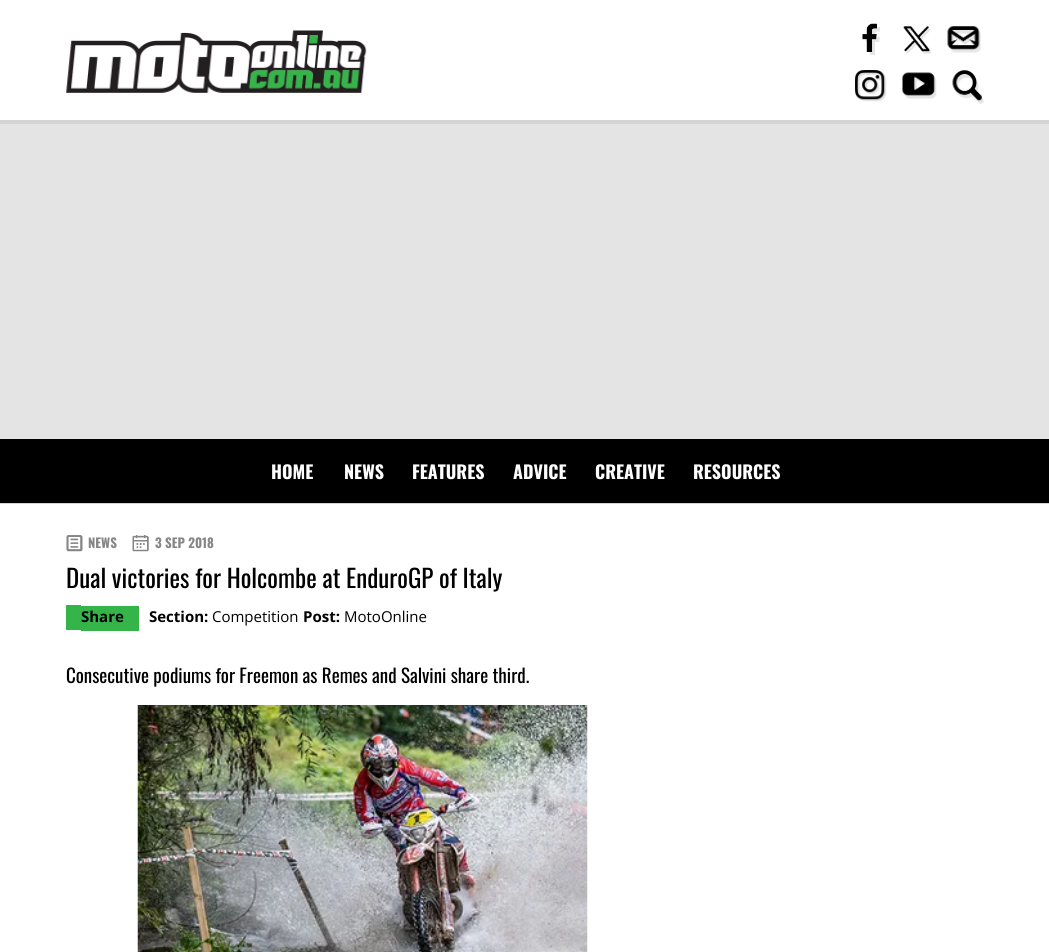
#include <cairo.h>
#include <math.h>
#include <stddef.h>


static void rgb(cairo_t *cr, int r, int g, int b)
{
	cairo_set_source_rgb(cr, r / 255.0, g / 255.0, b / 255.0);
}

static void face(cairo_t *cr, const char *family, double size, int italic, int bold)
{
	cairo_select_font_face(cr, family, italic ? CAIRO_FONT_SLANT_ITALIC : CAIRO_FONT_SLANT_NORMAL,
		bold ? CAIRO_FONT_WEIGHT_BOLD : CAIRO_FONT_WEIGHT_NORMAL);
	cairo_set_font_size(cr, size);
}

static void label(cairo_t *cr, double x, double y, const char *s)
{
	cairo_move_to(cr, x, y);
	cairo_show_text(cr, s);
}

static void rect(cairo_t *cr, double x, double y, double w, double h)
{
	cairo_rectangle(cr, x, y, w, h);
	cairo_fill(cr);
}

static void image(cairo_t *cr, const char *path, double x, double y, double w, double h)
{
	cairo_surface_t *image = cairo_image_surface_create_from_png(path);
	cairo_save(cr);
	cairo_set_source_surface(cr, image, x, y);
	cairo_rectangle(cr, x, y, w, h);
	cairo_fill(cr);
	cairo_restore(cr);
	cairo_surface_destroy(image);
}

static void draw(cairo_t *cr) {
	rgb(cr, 255, 255, 255);
	cairo_paint(cr);
	rgb(cr, 212, 212, 212);
	rect(cr, 0, 120, 1049, 4);
	image(cr, "image0.png", 66, 30, 301, 63);
	image(cr, "image1.png", 862, 23, 18, 32);
	image(cr, "image2.png", 903, 26, 29, 28);
	image(cr, "image3.png", 947, 26, 34, 27);
	image(cr, "image4.png", 855, 70, 32, 32);
	image(cr, "image5.png", 902, 72, 35, 27);
	image(cr, "image6.png", 952, 70, 32, 34);
	rgb(cr, 228, 228, 228);
	rect(cr, 0, 124, 1049, 315);
	rgb(cr, 0, 0, 0);
	rect(cr, 0, 439, 1049, 64);
	rgb(cr, 212, 212, 212);
	rect(cr, 0, 503, 1049, 1);
	face(cr, "Oswald", 18, 0, 1);
	rgb(cr, 255, 255, 255);
	label(cr, 271, 479, "HOME");
	label(cr, 344, 479, "NEWS");
	label(cr, 412, 479, "FEATURES");
	label(cr, 513, 479, "ADVICE");
	label(cr, 595, 479, "CREATIVE");
	label(cr, 693, 479, "RESOURCES");
	image(cr, "image7.png", 66, 535, 17, 17);
	face(cr, "Oswald", 13, 0, 1);
	rgb(cr, 134, 134, 134);
	label(cr, 88, 548, "NEWS");
	image(cr, "image8.png", 132, 535, 17, 17);
	label(cr, 155, 548, "3 SEP 2018");
	face(cr, "Oswald", 25, 0, 0);
	rgb(cr, 0, 0, 0);
	label(cr, 66, 588, "Dual victories for Holcombe at EnduroGP of Italy");
	rgb(cr, 53, 180, 73);
	rect(cr, 81, 606, 58, 25);
	face(cr, "Open Sans", 15, 0, 1);
	rgb(cr, 0, 0, 0);
	label(cr, 81, 622, "Share");
	rgb(cr, 53, 180, 73);
	rect(cr, 66, 605, 15, 25);
	rgb(cr, 0, 0, 0);
	label(cr, 149, 622, "Section:");
	face(cr, "Open Sans", 15, 0, 0);
	label(cr, 212, 622, "Competition");
	face(cr, "Open Sans", 15, 0, 1);
	label(cr, 303, 622, "Post:");
	face(cr, "Open Sans", 15, 0, 0);
	label(cr, 344, 622, "MotoOnline");
	face(cr, "Oswald", 19, 0, 0);
	label(cr, 66, 683, "Consecutive podiums for Freemon as Remes and Salvini share third.");
	image(cr, "image9.png", 137, 705, 451, 247);
}

int main(void) {
	cairo_surface_t *surface = cairo_image_surface_create(CAIRO_FORMAT_RGB24, 1049, 952);
	cairo_t *cr = cairo_create(surface);
	cairo_font_options_t *options = cairo_font_options_create();
	cairo_font_options_set_hint_metrics(options, CAIRO_HINT_METRICS_OFF);
	cairo_font_options_set_hint_style(options, CAIRO_HINT_STYLE_NONE);
	cairo_set_font_options(cr, options);
	cairo_set_miter_limit(cr, 4);
	draw(cr);
	cairo_surface_write_to_png(surface, "render.png");
	cairo_font_options_destroy(options);
	cairo_destroy(cr);
	cairo_surface_destroy(surface);
	return 0;
}
